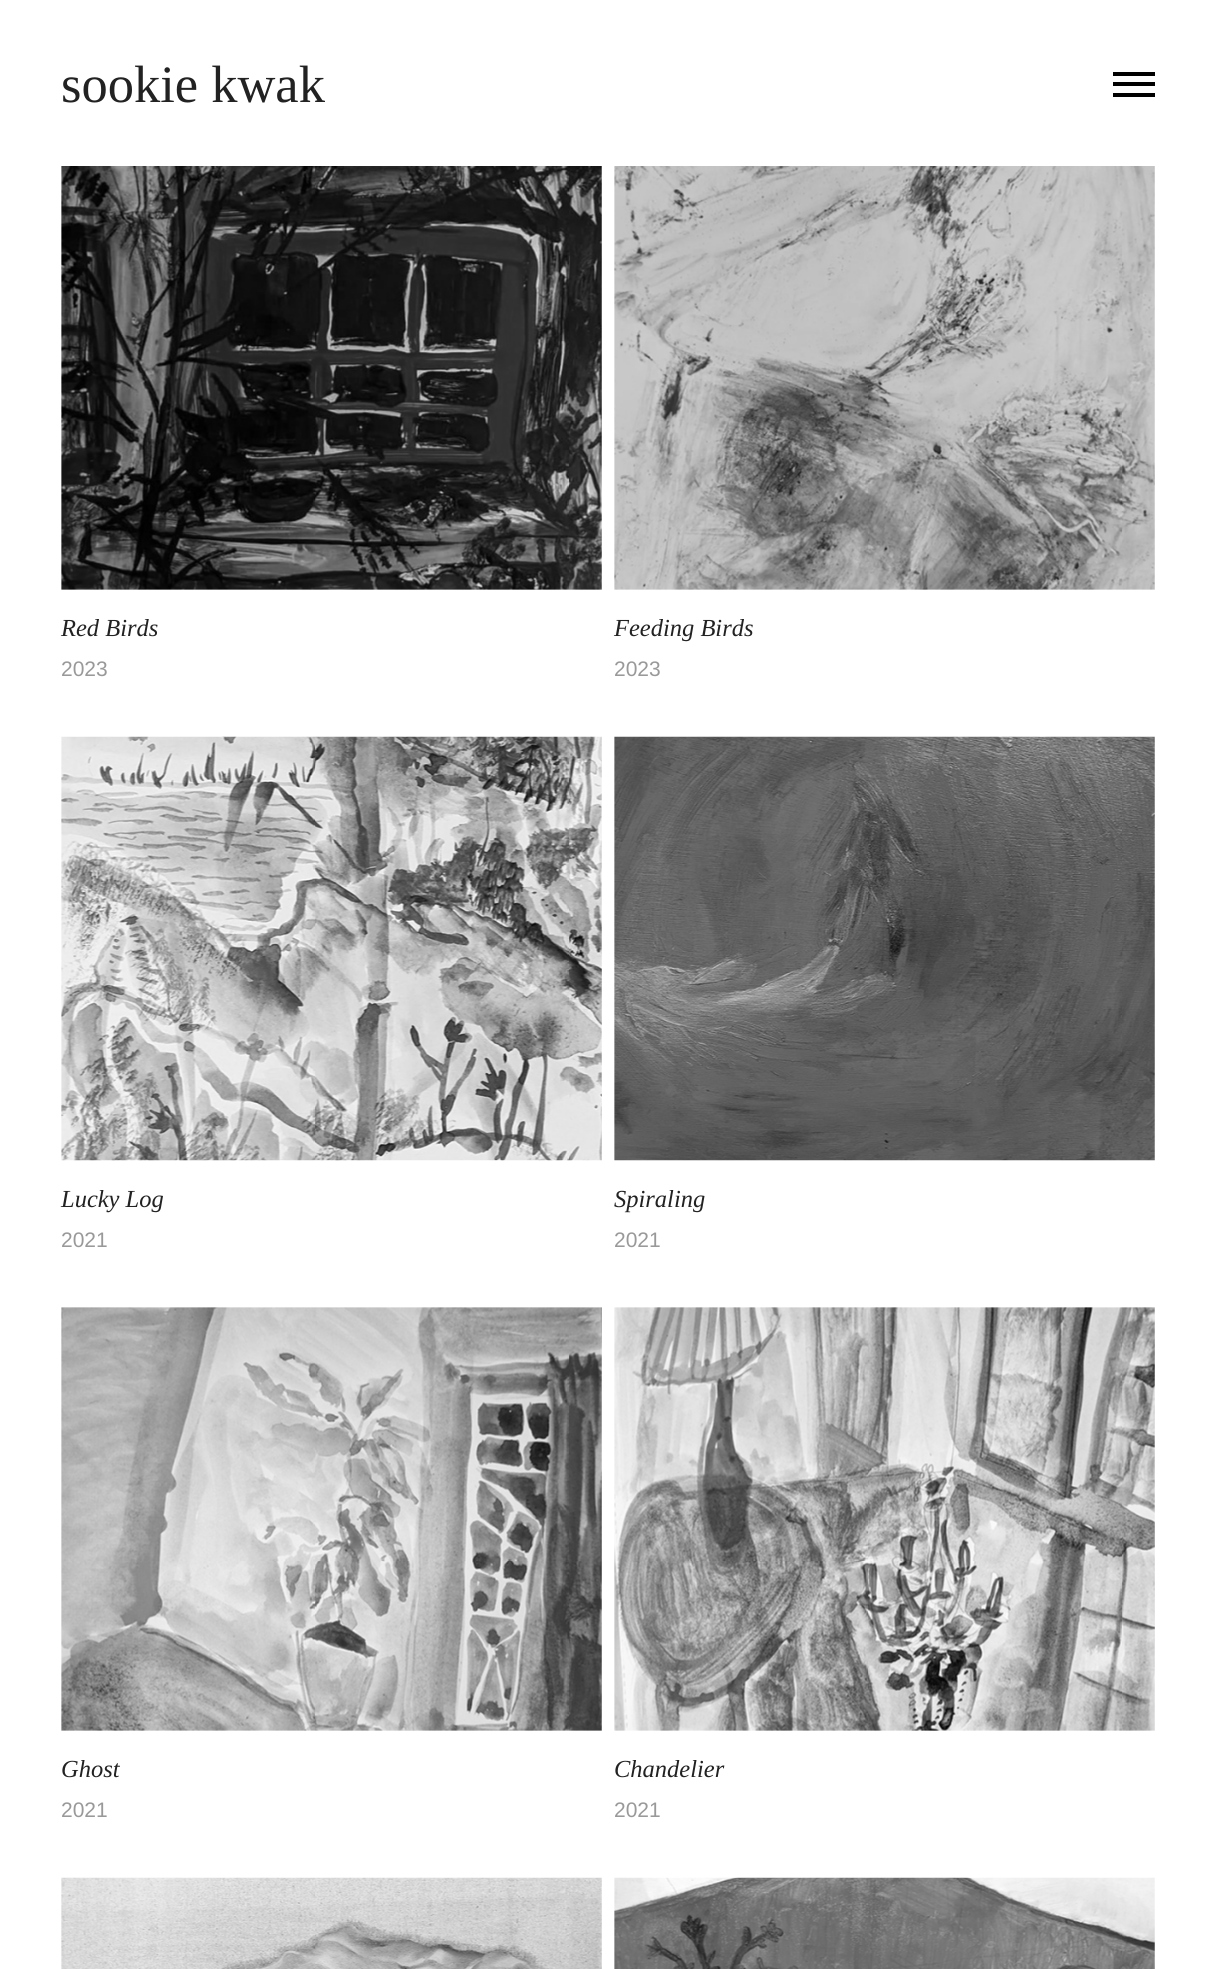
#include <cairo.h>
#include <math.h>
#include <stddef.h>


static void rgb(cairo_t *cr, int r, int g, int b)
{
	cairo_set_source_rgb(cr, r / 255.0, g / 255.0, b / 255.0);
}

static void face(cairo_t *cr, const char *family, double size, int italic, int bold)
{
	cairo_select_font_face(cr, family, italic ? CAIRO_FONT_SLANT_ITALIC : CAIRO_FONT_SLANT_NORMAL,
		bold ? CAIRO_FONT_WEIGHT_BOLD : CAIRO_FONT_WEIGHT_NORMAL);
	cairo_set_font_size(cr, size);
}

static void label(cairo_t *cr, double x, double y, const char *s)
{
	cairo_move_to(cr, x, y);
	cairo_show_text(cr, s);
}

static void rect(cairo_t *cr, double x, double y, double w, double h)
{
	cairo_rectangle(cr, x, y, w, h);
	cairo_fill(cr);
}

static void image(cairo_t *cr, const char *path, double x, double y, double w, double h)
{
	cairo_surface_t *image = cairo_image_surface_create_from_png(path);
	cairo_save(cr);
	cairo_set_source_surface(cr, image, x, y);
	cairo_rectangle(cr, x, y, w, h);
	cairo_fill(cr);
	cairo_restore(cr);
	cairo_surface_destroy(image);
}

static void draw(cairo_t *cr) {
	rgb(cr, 255, 255, 255);
	cairo_paint(cr);
	face(cr, "Liberation Serif", 52.5, 0, 0);
	rgb(cr, 34, 34, 34);
	label(cr, 61, 102, "sookie kwak");
	rgb(cr, 0, 0, 0);
	rect(cr, 1113, 72, 42, 4);
	rect(cr, 1113, 82, 42, 4);
	rect(cr, 1113, 93, 42, 4);
	image(cr, "image0.png", 61, 166, 541, 424);
	face(cr, "Liberation Serif", 24.5, 1, 0);
	rgb(cr, 34, 34, 34);
	label(cr, 61, 636, "Red Birds");
	face(cr, "Liberation Sans", 21, 0, 0);
	rgb(cr, 153, 153, 153);
	label(cr, 61, 676, "2023");
	image(cr, "image1.png", 614, 166, 541, 424);
	face(cr, "Liberation Serif", 24.5, 1, 0);
	rgb(cr, 34, 34, 34);
	label(cr, 614, 636, "Feeding Birds");
	face(cr, "Liberation Sans", 21, 0, 0);
	rgb(cr, 153, 153, 153);
	label(cr, 614, 676, "2023");
	image(cr, "image2.png", 61, 736, 541, 425);
	face(cr, "Liberation Serif", 24.5, 1, 0);
	rgb(cr, 34, 34, 34);
	label(cr, 61, 1207, "Lucky Log");
	face(cr, "Liberation Sans", 21, 0, 0);
	rgb(cr, 153, 153, 153);
	label(cr, 61, 1247, "2021");
	image(cr, "image3.png", 614, 736, 541, 425);
	face(cr, "Liberation Serif", 24.5, 1, 0);
	rgb(cr, 34, 34, 34);
	label(cr, 614, 1207, "Spiraling");
	face(cr, "Liberation Sans", 21, 0, 0);
	rgb(cr, 153, 153, 153);
	label(cr, 614, 1247, "2021");
	image(cr, "image4.png", 61, 1307, 541, 424);
	face(cr, "Liberation Serif", 24.5, 1, 0);
	rgb(cr, 34, 34, 34);
	label(cr, 61, 1777, "Ghost");
	face(cr, "Liberation Sans", 21, 0, 0);
	rgb(cr, 153, 153, 153);
	label(cr, 61, 1817, "2021");
	image(cr, "image5.png", 614, 1307, 541, 424);
	face(cr, "Liberation Serif", 24.5, 1, 0);
	rgb(cr, 34, 34, 34);
	label(cr, 614, 1777, "Chandelier");
	face(cr, "Liberation Sans", 21, 0, 0);
	rgb(cr, 153, 153, 153);
	label(cr, 614, 1817, "2021");
	image(cr, "image6.png", 61, 1877, 541, 92);
	image(cr, "image7.png", 614, 1877, 541, 92);
}

int main(void) {
	cairo_surface_t *surface = cairo_image_surface_create(CAIRO_FORMAT_RGB24, 1216, 1969);
	cairo_t *cr = cairo_create(surface);
	cairo_font_options_t *options = cairo_font_options_create();
	cairo_font_options_set_hint_metrics(options, CAIRO_HINT_METRICS_OFF);
	cairo_font_options_set_hint_style(options, CAIRO_HINT_STYLE_NONE);
	cairo_set_font_options(cr, options);
	cairo_set_miter_limit(cr, 4);
	draw(cr);
	cairo_surface_write_to_png(surface, "render.png");
	cairo_font_options_destroy(options);
	cairo_destroy(cr);
	cairo_surface_destroy(surface);
	return 0;
}
